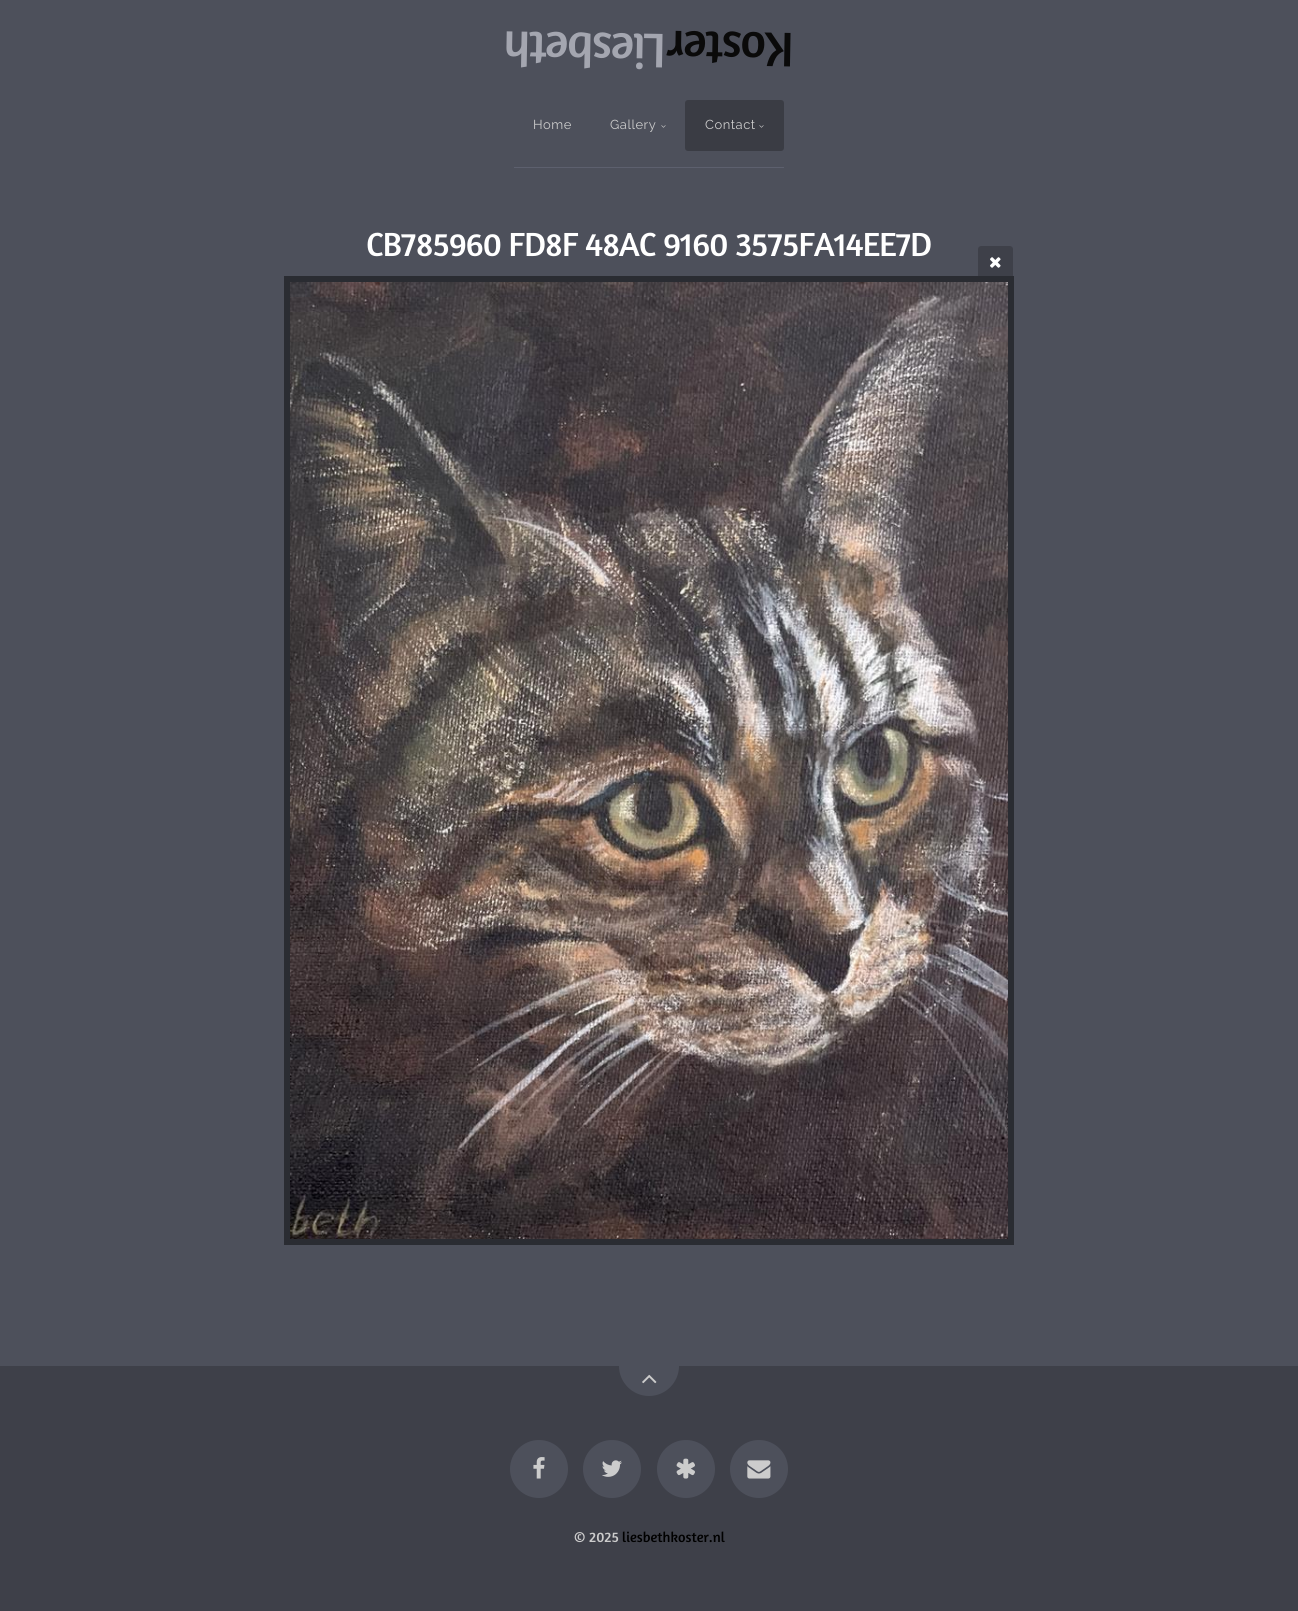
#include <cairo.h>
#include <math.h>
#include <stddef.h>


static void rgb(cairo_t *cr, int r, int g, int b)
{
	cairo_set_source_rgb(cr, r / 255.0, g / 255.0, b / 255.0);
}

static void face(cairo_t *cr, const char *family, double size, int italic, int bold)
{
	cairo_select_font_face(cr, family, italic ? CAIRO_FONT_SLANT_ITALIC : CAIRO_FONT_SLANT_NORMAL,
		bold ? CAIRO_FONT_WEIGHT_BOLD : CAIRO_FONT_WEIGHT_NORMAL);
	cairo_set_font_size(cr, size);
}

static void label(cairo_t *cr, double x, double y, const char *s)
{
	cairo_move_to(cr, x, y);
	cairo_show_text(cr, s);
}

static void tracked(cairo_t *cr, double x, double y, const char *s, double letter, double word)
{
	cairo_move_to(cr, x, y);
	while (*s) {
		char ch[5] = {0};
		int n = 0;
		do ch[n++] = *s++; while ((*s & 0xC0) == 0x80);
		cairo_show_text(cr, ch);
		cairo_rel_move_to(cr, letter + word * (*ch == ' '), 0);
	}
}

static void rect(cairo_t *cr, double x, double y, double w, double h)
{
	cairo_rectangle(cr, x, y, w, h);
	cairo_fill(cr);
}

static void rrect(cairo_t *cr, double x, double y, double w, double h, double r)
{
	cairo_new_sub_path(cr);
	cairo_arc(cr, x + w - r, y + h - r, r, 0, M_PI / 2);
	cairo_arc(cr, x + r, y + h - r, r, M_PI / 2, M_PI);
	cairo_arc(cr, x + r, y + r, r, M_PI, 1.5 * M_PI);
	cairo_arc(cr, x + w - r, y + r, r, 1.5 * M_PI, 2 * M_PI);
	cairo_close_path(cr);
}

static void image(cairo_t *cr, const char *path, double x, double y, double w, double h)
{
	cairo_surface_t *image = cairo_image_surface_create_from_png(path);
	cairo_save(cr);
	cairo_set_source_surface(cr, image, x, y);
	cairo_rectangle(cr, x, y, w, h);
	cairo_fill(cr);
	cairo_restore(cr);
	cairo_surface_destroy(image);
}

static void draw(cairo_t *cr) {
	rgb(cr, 77, 80, 91);
	cairo_paint(cr);
	face(cr, "Amaranth", 49.5, 0, 0);
	rgb(cr, 164, 166, 176);
	cairo_save(cr);
	cairo_translate(cr, 666, 34);
	cairo_rotate(cr, -179 * M_PI / 180);
	tracked(cr, 0, 0, "Liesbeth", -1.5, 0);
	cairo_restore(cr);
	rgb(cr, 10, 10, 10);
	cairo_save(cr);
	cairo_translate(cr, 794, 33);
	cairo_rotate(cr, -179 * M_PI / 180);
	tracked(cr, 0, 0, "Koster", -1.5, 0);
	cairo_restore(cr);
	rgb(cr, 93, 96, 110);
	rect(cr, 514, 167, 270, 1);
	face(cr, "Raleway Thin", 13, 0, 0);
	rgb(cr, 204, 204, 204);
	tracked(cr, 533, 129, "Home", 0.5, 0);
	tracked(cr, 610, 129, "Gallery", 0.5, 0);
	image(cr, "image0.png", 661, 125, 5, 3);
	rgb(cr, 58, 60, 68);
	rrect(cr, 685, 100, 99, 51, 3);
	cairo_fill(cr);
	rgb(cr, 204, 204, 204);
	tracked(cr, 705, 129, "Contact", 0.5, 0);
	image(cr, "image1.png", 759, 125, 5, 3);
	face(cr, "Amaranth", 34, 0, 0);
	rgb(cr, 255, 255, 255);
	tracked(cr, 366, 256, "CB785960 FD8F 48AC 9160 3575FA14EE7D", -0.95, 0);
	rgb(cr, 62, 64, 73);
	cairo_new_path(cr);
	cairo_move_to(cr, 981, 246);
	cairo_line_to(cr, 1010, 246);
	cairo_curve_to(cr, 1011.5, 246, 1013, 247.5, 1013, 249);
	cairo_line_to(cr, 1013, 276);
	cairo_line_to(cr, 978, 276);
	cairo_line_to(cr, 978, 249);
	cairo_curve_to(cr, 978, 247.5, 979.5, 246, 981, 246);
	cairo_close_path(cr);
	cairo_fill(cr);
	image(cr, "image2.png", 990, 257, 11, 11);
	rgb(cr, 42, 44, 50);
	rect(cr, 284, 276, 730, 969);
	image(cr, "image3.png", 290, 282, 718, 957);
	rgb(cr, 62, 64, 73);
	rect(cr, 0, 1366, 1298, 245);
	rgb(cr, 77, 80, 91);
	cairo_new_path(cr);
	cairo_move_to(cr, 619, 1366);
	cairo_line_to(cr, 679, 1366);
	cairo_curve_to(cr, 679, 1382.5, 665.5, 1396, 649, 1396);
	cairo_curve_to(cr, 632.5, 1396, 619, 1382.5, 619, 1366);
	cairo_close_path(cr);
	cairo_fill(cr);
	image(cr, "image4.png", 642, 1374, 15, 10);
	cairo_arc(cr, 539, 1469, 29, 0, 2 * M_PI);
	cairo_fill(cr);
	image(cr, "image5.png", 533, 1457, 12, 22);
	cairo_arc(cr, 612, 1469, 29, 0, 2 * M_PI);
	cairo_fill(cr);
	image(cr, "image6.png", 602, 1460, 20, 17);
	cairo_arc(cr, 686, 1469, 29, 0, 2 * M_PI);
	cairo_fill(cr);
	image(cr, "image7.png", 676, 1458, 19, 21);
	cairo_arc(cr, 759, 1469, 29, 0, 2 * M_PI);
	cairo_fill(cr);
	image(cr, "image8.png", 747, 1460, 24, 19);
	face(cr, "Amaranth", 14.5, 0, 0);
	rgb(cr, 204, 204, 204);
	label(cr, 574, 1542, "© 2025");
	rgb(cr, 0, 0, 0);
	label(cr, 622, 1542, "liesbethkoster.nl");
}

int main(void) {
	cairo_surface_t *surface = cairo_image_surface_create(CAIRO_FORMAT_RGB24, 1298, 1611);
	cairo_t *cr = cairo_create(surface);
	cairo_font_options_t *options = cairo_font_options_create();
	cairo_font_options_set_hint_metrics(options, CAIRO_HINT_METRICS_OFF);
	cairo_font_options_set_hint_style(options, CAIRO_HINT_STYLE_NONE);
	cairo_set_font_options(cr, options);
	cairo_set_miter_limit(cr, 4);
	draw(cr);
	cairo_surface_write_to_png(surface, "render.png");
	cairo_font_options_destroy(options);
	cairo_destroy(cr);
	cairo_surface_destroy(surface);
	return 0;
}
